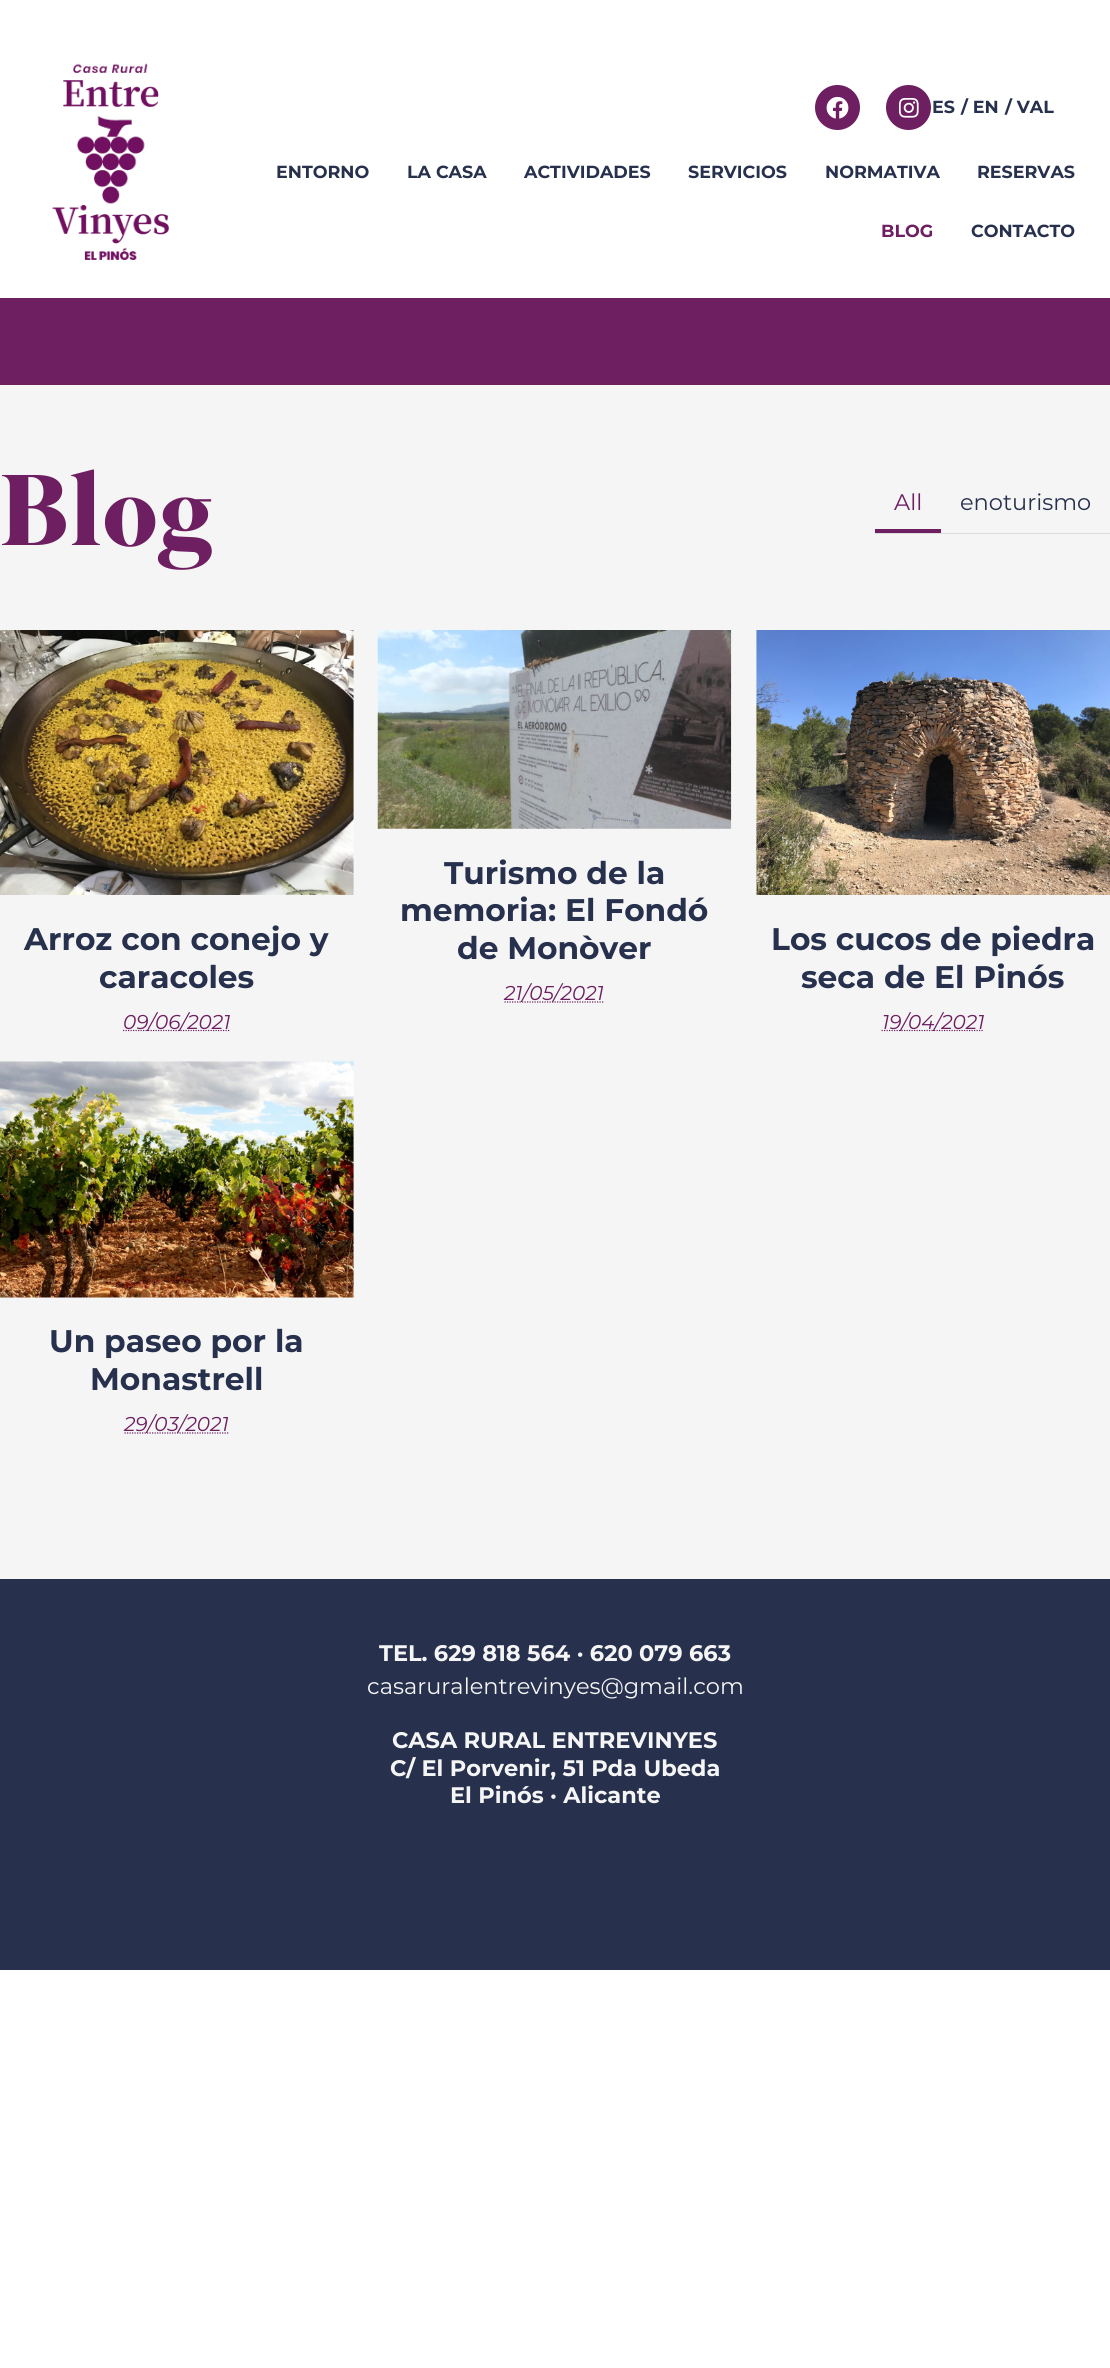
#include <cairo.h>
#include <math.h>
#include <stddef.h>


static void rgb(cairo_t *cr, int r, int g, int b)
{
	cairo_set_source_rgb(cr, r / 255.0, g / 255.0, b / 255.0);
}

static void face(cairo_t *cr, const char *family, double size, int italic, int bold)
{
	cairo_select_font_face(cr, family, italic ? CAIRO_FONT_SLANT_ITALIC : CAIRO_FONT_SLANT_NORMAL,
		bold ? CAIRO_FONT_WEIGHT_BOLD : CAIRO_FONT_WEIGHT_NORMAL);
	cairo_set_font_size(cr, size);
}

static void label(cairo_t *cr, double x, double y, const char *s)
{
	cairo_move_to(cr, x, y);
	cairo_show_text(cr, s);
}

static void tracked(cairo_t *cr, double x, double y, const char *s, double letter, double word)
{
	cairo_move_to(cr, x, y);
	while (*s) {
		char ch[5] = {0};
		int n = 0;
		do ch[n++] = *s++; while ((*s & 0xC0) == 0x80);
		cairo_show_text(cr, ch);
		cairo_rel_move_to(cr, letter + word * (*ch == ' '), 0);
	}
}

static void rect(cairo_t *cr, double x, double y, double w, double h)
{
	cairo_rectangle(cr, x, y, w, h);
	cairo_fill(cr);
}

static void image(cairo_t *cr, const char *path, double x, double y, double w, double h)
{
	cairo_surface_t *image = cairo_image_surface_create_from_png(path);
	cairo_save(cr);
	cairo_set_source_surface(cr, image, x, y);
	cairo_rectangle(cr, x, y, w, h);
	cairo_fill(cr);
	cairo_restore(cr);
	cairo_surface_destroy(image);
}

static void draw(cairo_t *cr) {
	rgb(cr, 255, 255, 255);
	cairo_paint(cr);
	rgb(cr, 110, 31, 97);
	cairo_arc(cr, 837.5, 107.5, 22.5, 0, 2 * M_PI);
	cairo_fill(cr);
	image(cr, "image0.png", 826, 96, 23, 23);
	cairo_arc(cr, 908.5, 107.5, 22.5, 0, 2 * M_PI);
	cairo_fill(cr);
	image(cr, "image1.png", 898, 98, 21, 20);
	face(cr, "Montserrat", 17.5, 0, 1);
	rgb(cr, 39, 49, 77);
	label(cr, 932, 113, "ES");
	label(cr, 961, 113, "/ EN");
	label(cr, 1005, 113, "/ VAL");
	image(cr, "image2.png", 52, 63, 117, 197);
	label(cr, 276, 178, "ENTORNO");
	label(cr, 407, 178, "LA CASA");
	label(cr, 524, 178, "ACTIVIDADES");
	label(cr, 688, 178, "SERVICIOS");
	label(cr, 825, 178, "NORMATIVA");
	label(cr, 977, 178, "RESERVAS");
	rgb(cr, 110, 31, 97);
	label(cr, 881, 237, "BLOG");
	rgb(cr, 39, 49, 77);
	label(cr, 971, 237, "CONTACTO");
	rgb(cr, 110, 31, 97);
	rect(cr, 0, 298, 1110, 87);
	rgb(cr, 245, 245, 245);
	rect(cr, 0, 385, 1110, 1194);
	face(cr, "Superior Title", 100, 0, 1);
	rgb(cr, 110, 31, 97);
	tracked(cr, 0, 545, "Blog", 1, 0);
	rgb(cr, 221, 221, 221);
	rect(cr, 875, 533, 235, 1);
	face(cr, "Montserrat", 22.5, 0, 0);
	rgb(cr, 110, 31, 97);
	label(cr, 894, 510, "All");
	rect(cr, 875, 529, 66, 4);
	rgb(cr, 39, 49, 77);
	label(cr, 960, 510, "enoturismo");
	image(cr, "image3.png", 0, 630, 354, 265);
	face(cr, "Montserrat", 31.25, 0, 1);
	label(cr, 24, 950, "Arroz con conejo y");
	label(cr, 99, 988, "caracoles");
	cairo_new_path(cr);
	cairo_move_to(cr, 123, 1030.5);
	cairo_line_to(cr, 230.5, 1030.5);
	rgb(cr, 110, 31, 97);
	cairo_set_line_width(cr, 1.2);
	cairo_set_dash(cr, (double[]){1.25, 1.25}, 2, 0);
	cairo_stroke(cr);
	face(cr, "Montserrat", 20, 1, 0);
	label(cr, 123, 1029, "09/06/2021");
	image(cr, "image4.png", 377, 630, 355, 199);
	face(cr, "Montserrat", 31.25, 0, 1);
	rgb(cr, 39, 49, 77);
	label(cr, 444, 884, "Turismo de la");
	label(cr, 400, 921, "memoria: El Fondó");
	label(cr, 457, 959, "de Monòver");
	cairo_new_path(cr);
	cairo_move_to(cr, 504.5, 1002);
	cairo_line_to(cr, 604, 1002);
	rgb(cr, 110, 31, 97);
	cairo_stroke(cr);
	face(cr, "Montserrat", 20, 1, 0);
	label(cr, 504, 1000, "21/05/2021");
	image(cr, "image5.png", 756, 630, 354, 265);
	face(cr, "Montserrat", 31.25, 0, 1);
	rgb(cr, 39, 49, 77);
	label(cr, 771, 950, "Los cucos de piedra");
	label(cr, 801, 988, "seca de El Pinós");
	cairo_new_path(cr);
	cairo_move_to(cr, 881.5, 1030.5);
	cairo_line_to(cr, 984, 1030.5);
	rgb(cr, 110, 31, 97);
	cairo_stroke(cr);
	face(cr, "Montserrat", 20, 1, 0);
	label(cr, 882, 1029, "19/04/2021");
	image(cr, "image6.png", 0, 1061, 354, 237);
	face(cr, "Montserrat", 31.25, 0, 1);
	rgb(cr, 39, 49, 77);
	label(cr, 49, 1352, "Un paseo por la");
	label(cr, 90, 1390, "Monastrell");
	cairo_new_path(cr);
	cairo_move_to(cr, 124.5, 1433);
	cairo_line_to(cr, 229, 1433);
	rgb(cr, 110, 31, 97);
	cairo_stroke(cr);
	face(cr, "Montserrat", 20, 1, 0);
	label(cr, 124, 1431, "29/03/2021");
	rgb(cr, 39, 49, 77);
	rect(cr, 0, 1579, 1110, 391);
	face(cr, "Montserrat", 22.5, 0, 1);
	rgb(cr, 245, 245, 245);
	label(cr, 379, 1661, "TEL. 629 818 564 · 620 079 663");
	face(cr, "Montserrat", 22.5, 0, 0);
	label(cr, 367, 1694, "casaruralentrevinyes@gmail.com");
	face(cr, "Montserrat", 22.5, 0, 1);
	label(cr, 392, 1748, "CASA RURAL ENTREVINYES");
	label(cr, 390, 1776, "C/ El Porvenir, 51 Pda Ubeda");
	label(cr, 450, 1803, "El Pinós · Alicante");
}

int main(void) {
	cairo_surface_t *surface = cairo_image_surface_create(CAIRO_FORMAT_RGB24, 1110, 2368);
	cairo_t *cr = cairo_create(surface);
	cairo_font_options_t *options = cairo_font_options_create();
	cairo_font_options_set_hint_metrics(options, CAIRO_HINT_METRICS_OFF);
	cairo_font_options_set_hint_style(options, CAIRO_HINT_STYLE_NONE);
	cairo_set_font_options(cr, options);
	cairo_set_miter_limit(cr, 4);
	draw(cr);
	cairo_surface_write_to_png(surface, "render.png");
	cairo_font_options_destroy(options);
	cairo_destroy(cr);
	cairo_surface_destroy(surface);
	return 0;
}
